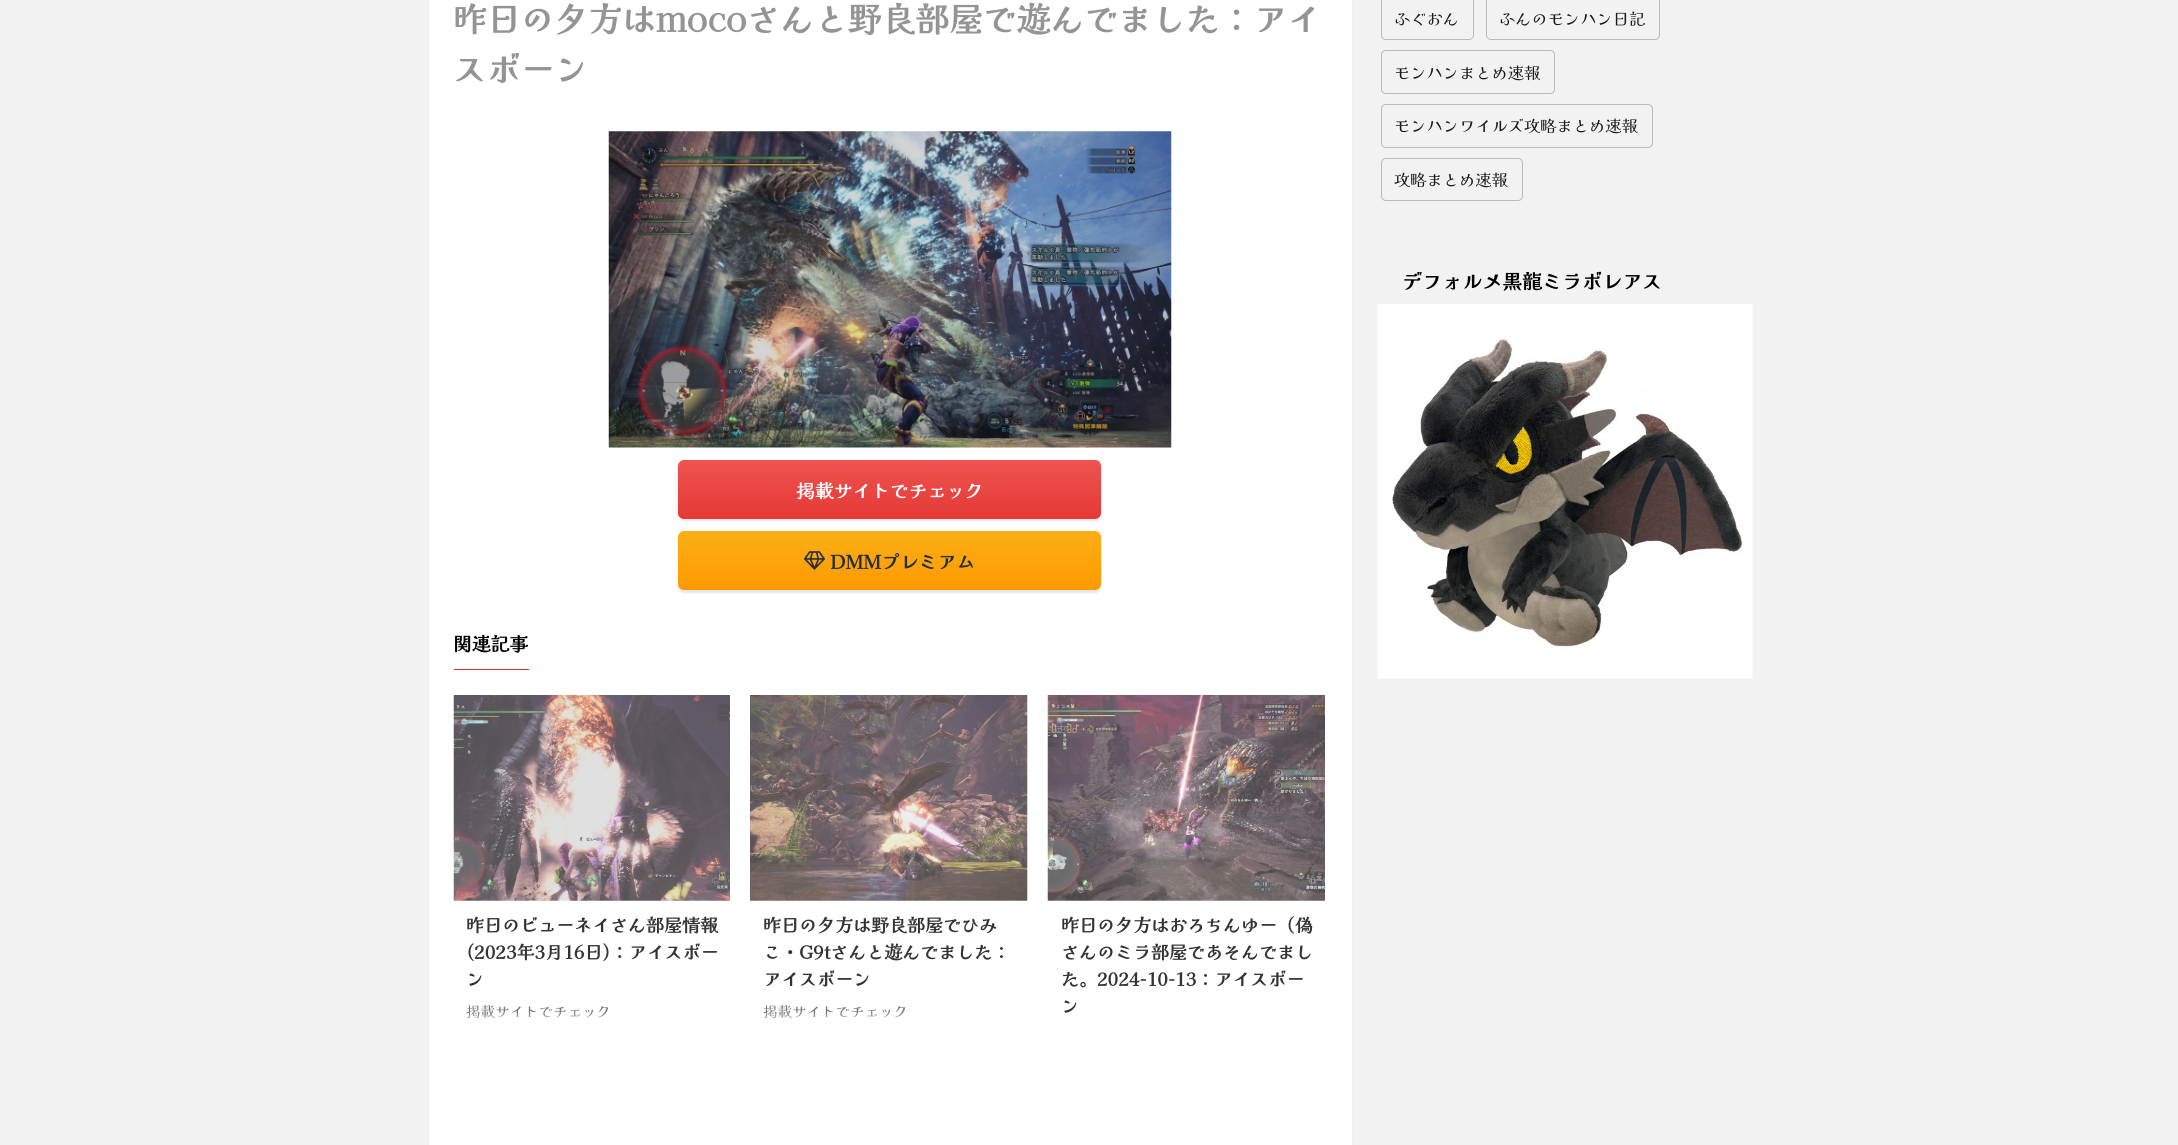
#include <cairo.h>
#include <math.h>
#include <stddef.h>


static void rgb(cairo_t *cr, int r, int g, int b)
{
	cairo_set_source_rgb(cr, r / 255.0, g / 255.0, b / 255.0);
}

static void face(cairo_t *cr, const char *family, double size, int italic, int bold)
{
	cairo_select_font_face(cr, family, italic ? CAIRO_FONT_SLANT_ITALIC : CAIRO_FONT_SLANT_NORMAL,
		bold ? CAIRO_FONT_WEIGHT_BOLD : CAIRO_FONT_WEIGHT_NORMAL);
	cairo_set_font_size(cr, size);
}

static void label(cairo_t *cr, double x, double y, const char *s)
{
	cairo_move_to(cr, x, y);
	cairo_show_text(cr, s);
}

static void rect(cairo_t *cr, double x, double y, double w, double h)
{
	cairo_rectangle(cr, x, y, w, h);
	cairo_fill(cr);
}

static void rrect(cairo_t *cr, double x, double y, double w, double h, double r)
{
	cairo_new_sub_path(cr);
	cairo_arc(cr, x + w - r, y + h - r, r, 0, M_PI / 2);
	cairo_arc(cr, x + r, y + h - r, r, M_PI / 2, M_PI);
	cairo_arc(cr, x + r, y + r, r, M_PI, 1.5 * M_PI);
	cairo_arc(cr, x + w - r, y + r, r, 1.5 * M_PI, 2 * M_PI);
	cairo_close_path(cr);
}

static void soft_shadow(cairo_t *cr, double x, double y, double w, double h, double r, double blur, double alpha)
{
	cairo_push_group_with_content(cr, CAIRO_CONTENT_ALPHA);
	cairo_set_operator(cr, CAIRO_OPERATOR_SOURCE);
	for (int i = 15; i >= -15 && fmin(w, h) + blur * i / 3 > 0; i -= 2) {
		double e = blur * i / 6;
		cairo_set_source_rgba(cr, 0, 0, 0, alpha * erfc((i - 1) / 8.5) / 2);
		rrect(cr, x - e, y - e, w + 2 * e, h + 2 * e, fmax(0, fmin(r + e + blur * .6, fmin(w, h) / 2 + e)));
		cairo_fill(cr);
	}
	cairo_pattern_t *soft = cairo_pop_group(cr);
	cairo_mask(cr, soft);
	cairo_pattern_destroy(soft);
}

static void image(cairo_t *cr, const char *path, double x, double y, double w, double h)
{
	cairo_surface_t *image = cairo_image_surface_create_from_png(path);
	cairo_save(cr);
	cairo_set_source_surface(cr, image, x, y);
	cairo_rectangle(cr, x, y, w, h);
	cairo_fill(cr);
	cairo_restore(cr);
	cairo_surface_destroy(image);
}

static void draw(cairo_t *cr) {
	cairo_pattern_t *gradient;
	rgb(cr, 242, 242, 242);
	cairo_paint(cr);
	rgb(cr, 255, 255, 255);
	cairo_rectangle(cr, 428.5, -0.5, 924, 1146);
	cairo_fill_preserve(cr);
	rgb(cr, 238, 238, 238);
	cairo_set_line_width(cr, 1);
	cairo_stroke(cr);
	face(cr, "Kaisei Opti", 33.75, 0, 1);
	rgb(cr, 148, 148, 148);
	label(cr, 453, 32, "昨日の夕方はmocoさんと野良部屋で遊んでました：アイ");
	label(cr, 453, 82, "スボーン");
	image(cr, "image0.png", 608, 131, 564, 317);
	rgb(cr, 0, 0, 0);
	soft_shadow(cr, 678, 463, 423, 58, 6, 1, 0.1);
	gradient = cairo_pattern_create_linear(889, 460, 889, 519);
	cairo_pattern_add_color_stop_rgba(gradient, 0, 0.937, 0.325, 0.314, 1);
	cairo_pattern_add_color_stop_rgba(gradient, 1, 0.898, 0.224, 0.208, 1);
	cairo_set_source(cr, gradient);
	cairo_pattern_destroy(gradient);
	rrect(cr, 678, 460, 423, 59, 6);
	cairo_fill(cr);
	face(cr, "Kaisei Opti", 18.75, 0, 1);
	rgb(cr, 255, 255, 255);
	label(cr, 796, 498, "掲載サイトでチェック");
	rgb(cr, 0, 0, 0);
	soft_shadow(cr, 678, 534, 423, 59, 6, 1, 0.1);
	gradient = cairo_pattern_create_linear(889, 531, 889, 590);
	cairo_pattern_add_color_stop_rgba(gradient, 0, 0.992, 0.686, 0.09, 1);
	cairo_pattern_add_color_stop_rgba(gradient, 1, 1, 0.6, 0, 1);
	cairo_set_source(cr, gradient);
	cairo_pattern_destroy(gradient);
	rrect(cr, 678, 531, 423, 59, 6);
	cairo_fill(cr);
	image(cr, "image1.png", 803, 551, 23, 19);
	rgb(cr, 35, 47, 62);
	label(cr, 830, 569, "DMMプレミアム");
	rgb(cr, 0, 0, 0);
	label(cr, 453, 651, "関連記事");
	rgb(cr, 221, 51, 51);
	rect(cr, 454, 669, 75, 1);
	image(cr, "image2.png", 453, 695, 277, 206);
	face(cr, "Kaisei Opti", 18, 0, 1);
	rgb(cr, 51, 51, 51);
	label(cr, 466, 932, "昨日のビューネイさん部屋情報");
	label(cr, 466, 959, "(2023年3月16日)：アイスボー");
	label(cr, 466, 986, "ン");
	face(cr, "Kaisei Opti", 14.5, 0, 0);
	rgb(cr, 119, 119, 119);
	label(cr, 466, 1017, "掲載サイトでチェック");
	gradient = cairo_pattern_create_linear(592, 1011, 592, 1035);
	cairo_pattern_add_color_stop_rgba(gradient, 0, 1, 1, 1, 0);
	cairo_pattern_add_color_stop_rgba(gradient, 1, 1, 1, 1, 1);
	cairo_set_source(cr, gradient);
	cairo_pattern_destroy(gradient);
	rect(cr, 466, 1012, 139, 7);
	image(cr, "image3.png", 750, 695, 278, 206);
	face(cr, "Kaisei Opti", 18, 0, 1);
	rgb(cr, 51, 51, 51);
	label(cr, 763, 932, "昨日の夕方は野良部屋でひみ");
	label(cr, 763, 959, "こ・G9tさんと遊んでました：");
	label(cr, 763, 986, "アイスボーン");
	face(cr, "Kaisei Opti", 14.5, 0, 0);
	rgb(cr, 119, 119, 119);
	label(cr, 763, 1017, "掲載サイトでチェック");
	gradient = cairo_pattern_create_linear(889, 1011, 889, 1035);
	cairo_pattern_add_color_stop_rgba(gradient, 0, 1, 1, 1, 0);
	cairo_pattern_add_color_stop_rgba(gradient, 1, 1, 1, 1, 1);
	cairo_set_source(cr, gradient);
	cairo_pattern_destroy(gradient);
	rect(cr, 764, 1012, 138, 7);
	image(cr, "image4.png", 1047, 695, 278, 206);
	face(cr, "Kaisei Opti", 18, 0, 1);
	rgb(cr, 51, 51, 51);
	label(cr, 1061, 932, "昨日の夕方はおろちんゆー（偽");
	label(cr, 1061, 959, "さんのミラ部屋であそんでまし");
	label(cr, 1061, 986, "た。2024-10-13：アイスボー");
	label(cr, 1061, 1013, "ン");
	gradient = cairo_pattern_create_linear(1186, 1011, 1186, 1035);
	cairo_pattern_add_color_stop_rgba(gradient, 0, 1, 1, 1, 0);
	cairo_pattern_add_color_stop_rgba(gradient, 1, 1, 1, 1, 1);
	cairo_set_source(cr, gradient);
	cairo_pattern_destroy(gradient);
	rect(cr, 1064, 1012, 3, 1);
	rrect(cr, 1381.5, -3.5, 92, 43, 4.5);
	rgb(cr, 186, 186, 186);
	cairo_stroke(cr);
	face(cr, "Kaisei Opti", 16.25, 0, 0);
	rgb(cr, 26, 26, 26);
	label(cr, 1394, 25, "ふぐおん");
	rrect(cr, 1486.5, -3.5, 173, 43, 4.5);
	rgb(cr, 186, 186, 186);
	cairo_stroke(cr);
	rgb(cr, 26, 26, 26);
	label(cr, 1499, 25, "ふんのモンハン日記");
	rrect(cr, 1381.5, 50.5, 173, 43, 4.5);
	rgb(cr, 186, 186, 186);
	cairo_stroke(cr);
	rgb(cr, 26, 26, 26);
	label(cr, 1394, 79, "モンハンまとめ速報");
	rrect(cr, 1381.5, 104.5, 271, 43, 4.5);
	rgb(cr, 186, 186, 186);
	cairo_stroke(cr);
	rgb(cr, 26, 26, 26);
	label(cr, 1394, 132, "モンハンワイルズ攻略まとめ速報");
	rrect(cr, 1381.5, 158.5, 141, 42, 4.5);
	rgb(cr, 186, 186, 186);
	cairo_stroke(cr);
	rgb(cr, 26, 26, 26);
	label(cr, 1394, 186, "攻略まとめ速報");
	face(cr, "Kaisei Opti", 20, 0, 1);
	rgb(cr, 0, 0, 0);
	label(cr, 1402, 289, "デフォルメ黒龍ミラボレアス");
	image(cr, "image5.png", 1377, 304, 376, 375);
}

int main(void) {
	cairo_surface_t *surface = cairo_image_surface_create(CAIRO_FORMAT_RGB24, 2178, 1145);
	cairo_t *cr = cairo_create(surface);
	cairo_font_options_t *options = cairo_font_options_create();
	cairo_font_options_set_hint_metrics(options, CAIRO_HINT_METRICS_OFF);
	cairo_font_options_set_hint_style(options, CAIRO_HINT_STYLE_NONE);
	cairo_set_font_options(cr, options);
	cairo_set_miter_limit(cr, 4);
	draw(cr);
	cairo_surface_write_to_png(surface, "render.png");
	cairo_font_options_destroy(options);
	cairo_destroy(cr);
	cairo_surface_destroy(surface);
	return 0;
}
